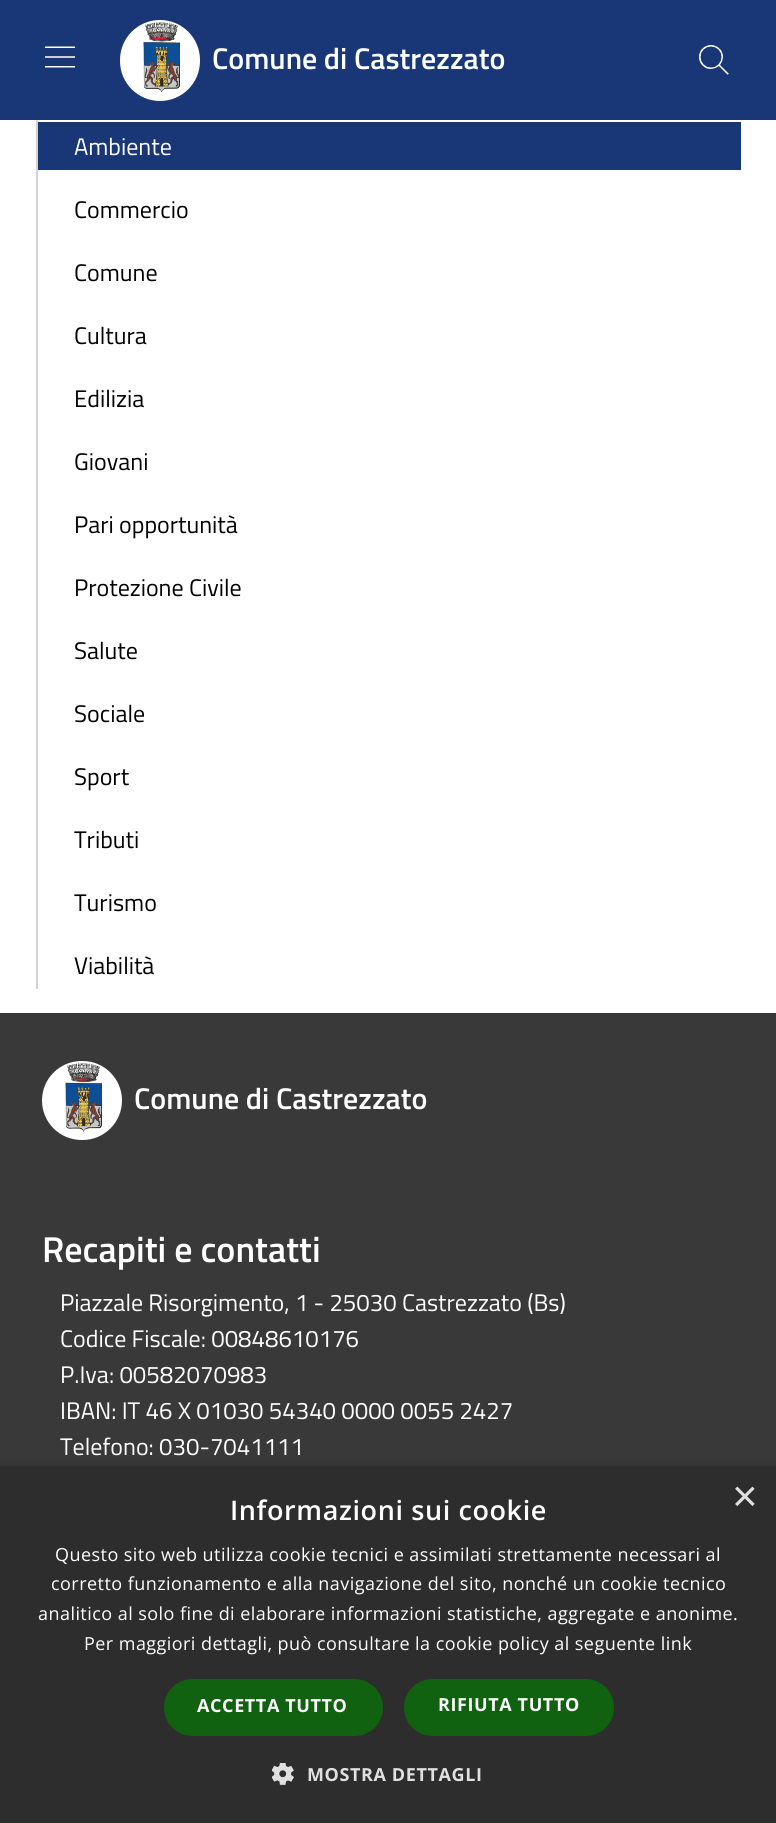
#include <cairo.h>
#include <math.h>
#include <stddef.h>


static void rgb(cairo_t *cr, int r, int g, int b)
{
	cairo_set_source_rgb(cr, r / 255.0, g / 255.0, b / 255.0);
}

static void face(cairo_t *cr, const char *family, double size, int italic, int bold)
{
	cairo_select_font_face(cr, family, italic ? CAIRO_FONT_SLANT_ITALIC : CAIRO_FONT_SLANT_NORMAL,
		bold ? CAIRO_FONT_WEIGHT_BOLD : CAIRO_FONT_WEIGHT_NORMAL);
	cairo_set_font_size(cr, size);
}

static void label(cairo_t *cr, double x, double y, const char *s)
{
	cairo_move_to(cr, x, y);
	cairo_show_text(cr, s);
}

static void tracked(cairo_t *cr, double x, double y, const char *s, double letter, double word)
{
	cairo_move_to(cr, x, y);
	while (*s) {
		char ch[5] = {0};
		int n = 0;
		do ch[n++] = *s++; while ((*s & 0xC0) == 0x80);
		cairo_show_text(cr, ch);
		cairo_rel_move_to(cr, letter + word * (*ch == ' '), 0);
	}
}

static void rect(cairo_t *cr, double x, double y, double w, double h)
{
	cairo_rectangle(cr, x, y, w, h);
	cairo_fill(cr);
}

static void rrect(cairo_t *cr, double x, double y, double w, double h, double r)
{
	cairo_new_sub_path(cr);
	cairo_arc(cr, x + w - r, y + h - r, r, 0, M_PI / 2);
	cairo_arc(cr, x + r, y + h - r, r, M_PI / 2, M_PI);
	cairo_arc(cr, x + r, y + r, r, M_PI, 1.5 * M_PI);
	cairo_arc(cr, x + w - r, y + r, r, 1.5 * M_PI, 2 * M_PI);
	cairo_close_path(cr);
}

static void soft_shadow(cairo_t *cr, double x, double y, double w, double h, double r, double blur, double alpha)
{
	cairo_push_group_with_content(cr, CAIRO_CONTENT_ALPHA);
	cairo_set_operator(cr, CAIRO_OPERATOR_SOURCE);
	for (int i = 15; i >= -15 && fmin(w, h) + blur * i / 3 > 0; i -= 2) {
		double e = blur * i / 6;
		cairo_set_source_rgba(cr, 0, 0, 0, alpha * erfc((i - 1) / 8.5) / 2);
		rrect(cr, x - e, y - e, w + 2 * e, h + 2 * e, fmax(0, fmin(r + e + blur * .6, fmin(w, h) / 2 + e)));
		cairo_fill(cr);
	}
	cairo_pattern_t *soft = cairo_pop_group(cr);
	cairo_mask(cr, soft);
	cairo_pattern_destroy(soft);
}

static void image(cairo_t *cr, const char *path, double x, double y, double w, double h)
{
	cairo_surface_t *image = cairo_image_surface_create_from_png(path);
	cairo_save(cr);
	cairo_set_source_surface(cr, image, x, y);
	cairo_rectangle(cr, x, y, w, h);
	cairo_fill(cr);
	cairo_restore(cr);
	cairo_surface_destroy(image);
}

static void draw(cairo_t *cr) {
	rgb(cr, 255, 255, 255);
	cairo_paint(cr);
	rgb(cr, 25, 54, 118);
	rect(cr, 0, 0, 776, 120);
	image(cr, "image0.png", 45, 46, 30, 22);
	rgb(cr, 255, 255, 255);
	rrect(cr, 121, 21, 78, 79, 39);
	cairo_fill_preserve(cr);
	cairo_stroke(cr);
	image(cr, "image1.png", 143, 22, 37, 70);
	face(cr, "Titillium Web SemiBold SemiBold", 30, 0, 0);
	label(cr, 212, 69, "Comune di Castrezzato");
	image(cr, "image2.png", 699, 45, 30, 30);
	rgb(cr, 211, 211, 211);
	rect(cr, 36, 120, 2, 869);
	rgb(cr, 25, 54, 118);
	rect(cr, 38, 122, 703, 48);
	face(cr, "Titillium Web", 24, 0, 0);
	rgb(cr, 255, 255, 255);
	label(cr, 74, 155, "Ambiente");
	rgb(cr, 0, 0, 0);
	label(cr, 74, 218, "Commercio");
	label(cr, 74, 281, "Comune");
	label(cr, 74, 344, "Cultura");
	label(cr, 74, 407, "Edilizia");
	label(cr, 74, 470, "Giovani");
	label(cr, 74, 533, "Pari opportunità");
	label(cr, 74, 596, "Protezione Civile");
	label(cr, 74, 659, "Salute");
	label(cr, 74, 722, "Sociale");
	label(cr, 74, 785, "Sport");
	label(cr, 74, 848, "Tributi");
	label(cr, 74, 911, "Turismo");
	label(cr, 74, 974, "Viabilità");
	rgb(cr, 57, 57, 57);
	rect(cr, 0, 1013, 776, 453);
	rgb(cr, 255, 255, 255);
	rrect(cr, 43, 1062, 78, 77, 38.5);
	cairo_fill_preserve(cr);
	cairo_stroke(cr);
	image(cr, "image3.png", 65, 1063, 37, 69);
	face(cr, "Titillium Web SemiBold SemiBold", 30, 0, 0);
	label(cr, 134, 1109, "Comune di Castrezzato");
	face(cr, "Titillium Web SemiBold SemiBold", 36, 0, 0);
	label(cr, 42, 1262, "Recapiti e contatti");
	face(cr, "Titillium Web", 24, 0, 0);
	label(cr, 60, 1311, "Piazzale Risorgimento, 1 - 25030 Castrezzato (Bs)");
	label(cr, 60, 1347, "Codice Fiscale: 00848610176");
	label(cr, 60, 1383, "P.Iva: 00582070983");
	label(cr, 60, 1419, "IBAN: IT 46 X 01030 54340 0000 0055 2427");
	label(cr, 60, 1455, "Telefono: 030-7041111");
	rgb(cr, 0, 0, 0);
	soft_shadow(cr, 2, 1469, 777, 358, 0, 6, 0.35);
	rgb(cr, 45, 45, 45);
	rect(cr, 0, 1466, 776, 357);
	face(cr, "Liberation Sans", 44, 0, 0);
	rgb(cr, 224, 224, 224);
	label(cr, 732, 1511, "×");
	face(cr, "Open Sans SemiBold", 27, 0, 0);
	rgb(cr, 255, 255, 255);
	tracked(cr, 230, 1520, "Informazioni sui cookie", 0.6, 0);
	face(cr, "Open Sans", 18, 0, 0);
	tracked(cr, 55, 1561, "Questo sito web utilizza cookie tecnici e assimilati strettamente necessari al", 0.45, 0);
	tracked(cr, 51, 1590, "corretto funzionamento e alla navigazione del sito, nonché un cookie tecnico", 0.45, 0);
	tracked(cr, 38, 1620, "analitico al solo fine di elaborare informazioni statistiche, aggregate e anonime.", 0.45, 0);
	tracked(cr, 84, 1650, "Per maggiori dettagli, può consultare la cookie policy al seguente link", 0.45, 0);
	rgb(cr, 16, 97, 16);
	rrect(cr, 164, 1679, 219, 57, 28.5);
	cairo_fill(cr);
	face(cr, "Open Sans", 18, 0, 1);
	rgb(cr, 255, 255, 255);
	tracked(cr, 197, 1712, "ACCETTA TUTTO", 0.6, 0);
	rgb(cr, 16, 97, 16);
	rrect(cr, 404, 1679, 210, 57, 28.5);
	cairo_fill(cr);
	rgb(cr, 255, 255, 255);
	tracked(cr, 438, 1711, "RIFIUTA TUTTO", 0.6, 0);
	image(cr, "image4.png", 272, 1763, 22, 22);
	rgb(cr, 224, 224, 224);
	tracked(cr, 307, 1781, "MOSTRA DETTAGLI", 0.6, 0);
}

int main(void) {
	cairo_surface_t *surface = cairo_image_surface_create(CAIRO_FORMAT_RGB24, 776, 1823);
	cairo_t *cr = cairo_create(surface);
	cairo_font_options_t *options = cairo_font_options_create();
	cairo_font_options_set_hint_metrics(options, CAIRO_HINT_METRICS_OFF);
	cairo_font_options_set_hint_style(options, CAIRO_HINT_STYLE_NONE);
	cairo_set_font_options(cr, options);
	cairo_set_miter_limit(cr, 4);
	draw(cr);
	cairo_surface_write_to_png(surface, "render.png");
	cairo_font_options_destroy(options);
	cairo_destroy(cr);
	cairo_surface_destroy(surface);
	return 0;
}
